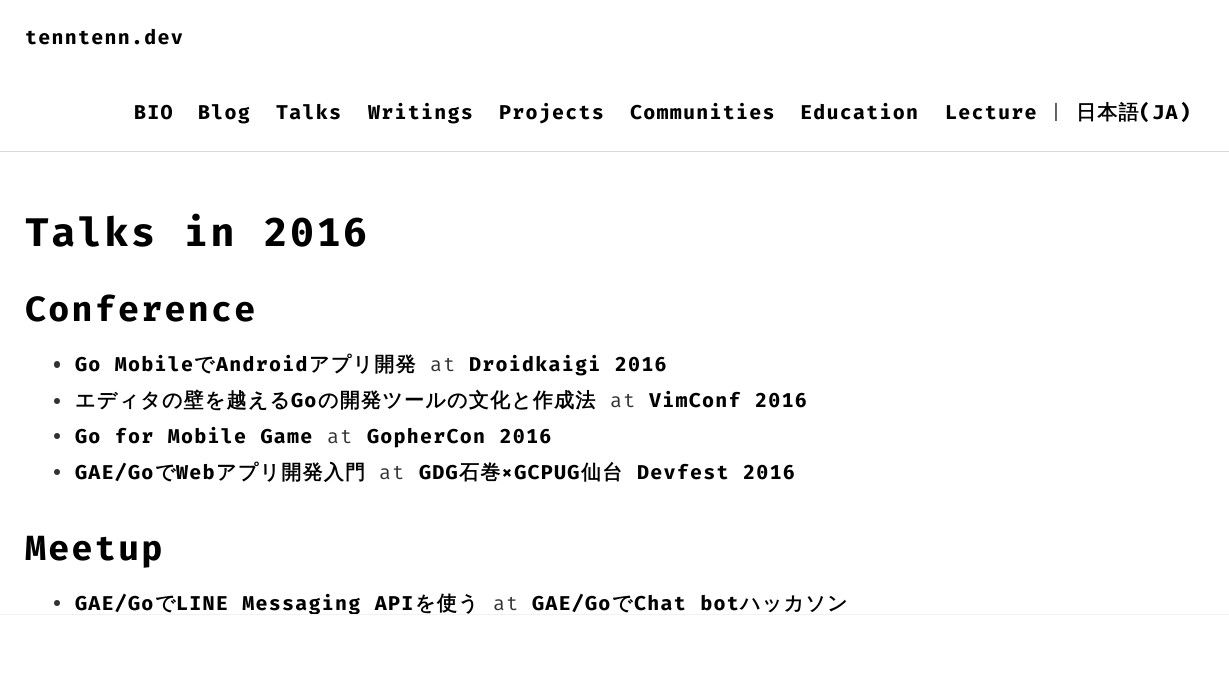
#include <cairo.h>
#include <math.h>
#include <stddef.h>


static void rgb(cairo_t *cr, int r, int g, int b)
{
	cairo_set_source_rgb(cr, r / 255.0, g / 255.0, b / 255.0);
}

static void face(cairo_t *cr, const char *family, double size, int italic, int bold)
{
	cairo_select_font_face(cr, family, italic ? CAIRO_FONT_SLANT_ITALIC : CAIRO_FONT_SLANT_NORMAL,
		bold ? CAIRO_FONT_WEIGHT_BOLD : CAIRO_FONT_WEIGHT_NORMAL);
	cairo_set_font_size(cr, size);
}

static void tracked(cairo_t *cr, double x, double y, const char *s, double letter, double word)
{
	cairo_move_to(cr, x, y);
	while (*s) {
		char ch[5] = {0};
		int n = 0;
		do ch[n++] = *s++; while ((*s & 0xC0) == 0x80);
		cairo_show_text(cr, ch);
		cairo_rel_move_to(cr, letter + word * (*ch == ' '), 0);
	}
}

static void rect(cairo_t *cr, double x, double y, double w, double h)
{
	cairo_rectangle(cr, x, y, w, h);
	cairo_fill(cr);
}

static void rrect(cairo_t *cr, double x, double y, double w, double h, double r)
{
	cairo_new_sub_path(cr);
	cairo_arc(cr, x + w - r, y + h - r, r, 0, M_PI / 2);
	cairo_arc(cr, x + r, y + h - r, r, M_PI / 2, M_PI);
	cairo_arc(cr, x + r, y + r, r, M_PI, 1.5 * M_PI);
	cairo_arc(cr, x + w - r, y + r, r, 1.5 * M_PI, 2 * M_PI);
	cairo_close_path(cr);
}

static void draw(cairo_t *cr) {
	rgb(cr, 255, 255, 255);
	cairo_paint(cr);
	rgb(cr, 217, 217, 217);
	rect(cr, 0, 151, 1229, 1);
	face(cr, "Fira Mono", 20, 0, 1);
	rgb(cr, 0, 0, 0);
	tracked(cr, 25, 44, "tenntenn.dev", 1.25, 0);
	tracked(cr, 134, 119, "BIO", 1.25, 0);
	tracked(cr, 198, 119, "Blog", 1.25, 0);
	tracked(cr, 276, 119, "Talks", 1.25, 0);
	tracked(cr, 368, 119, "Writings", 1.25, 0);
	tracked(cr, 499, 119, "Projects", 1.25, 0);
	tracked(cr, 630, 119, "Communities", 1.25, 0);
	tracked(cr, 800, 119, "Education", 1.25, 0);
	tracked(cr, 945, 119, "Lecture", 1.25, 0);
	face(cr, "Fira Mono", 20, 0, 0);
	rgb(cr, 50, 50, 50);
	tracked(cr, 1050, 119, "|", 1.25, 0);
	face(cr, "WenQuanYi Zen Hei", 20, 0, 1);
	rgb(cr, 0, 0, 0);
	tracked(cr, 1076, 119, "日本語", 1.25, 0);
	face(cr, "Fira Mono", 20, 0, 1);
	tracked(cr, 1139, 119, "(JA)", 1.25, 0);
	face(cr, "Fira Mono", 40, 0, 1);
	tracked(cr, 25, 246, "Talks in 2016", 2.5, 0);
	face(cr, "Fira Mono", 35, 0, 1);
	tracked(cr, 25, 321, "Conference", 2.25, 0);
	rgb(cr, 50, 50, 50);
	rrect(cr, 54, 361, 6, 7, 3);
	cairo_fill(cr);
	face(cr, "Fira Mono", 20, 0, 1);
	rgb(cr, 0, 0, 0);
	tracked(cr, 75, 371, "Go Mobile", 1.25, 0);
	face(cr, "WenQuanYi Zen Hei", 20, 0, 1);
	tracked(cr, 194, 371, "で", 1.25, 0);
	face(cr, "Fira Mono", 20, 0, 1);
	tracked(cr, 216, 371, "Android", 1.25, 0);
	face(cr, "WenQuanYi Zen Hei", 20, 0, 1);
	tracked(cr, 309, 371, "アプリ開発", 1.25, 0);
	face(cr, "Fira Mono", 20, 0, 0);
	rgb(cr, 50, 50, 50);
	tracked(cr, 430, 371, "at", 1.25, 0);
	face(cr, "Fira Mono", 20, 0, 1);
	rgb(cr, 0, 0, 0);
	tracked(cr, 469, 371, "Droidkaigi 2016", 1.25, 0);
	rgb(cr, 50, 50, 50);
	cairo_new_path(cr);
	cairo_arc(cr, 57, 401, 3, 0, 2 * M_PI);
	cairo_fill(cr);
	face(cr, "WenQuanYi Zen Hei", 20, 0, 1);
	rgb(cr, 0, 0, 0);
	tracked(cr, 75, 407, "エディタの壁を越える", 1.25, 0);
	face(cr, "Fira Mono", 20, 0, 1);
	tracked(cr, 291, 407, "Go", 1.25, 0);
	face(cr, "WenQuanYi Zen Hei", 20, 0, 1);
	tracked(cr, 318, 407, "の開発ツールの文化と作成法", 1.25, 0);
	face(cr, "Fira Mono", 20, 0, 0);
	rgb(cr, 50, 50, 50);
	tracked(cr, 610, 407, "at", 1.25, 0);
	face(cr, "Fira Mono", 20, 0, 1);
	rgb(cr, 0, 0, 0);
	tracked(cr, 649, 407, "VimConf 2016", 1.25, 0);
	rgb(cr, 50, 50, 50);
	cairo_new_path(cr);
	cairo_arc(cr, 57, 436, 3, 0, 2 * M_PI);
	cairo_fill(cr);
	rgb(cr, 0, 0, 0);
	tracked(cr, 75, 443, "Go for Mobile Game", 1.25, 0);
	face(cr, "Fira Mono", 20, 0, 0);
	rgb(cr, 50, 50, 50);
	tracked(cr, 327, 443, "at", 1.25, 0);
	face(cr, "Fira Mono", 20, 0, 1);
	rgb(cr, 0, 0, 0);
	tracked(cr, 367, 443, "GopherCon 2016", 1.25, 0);
	rgb(cr, 50, 50, 50);
	cairo_new_path(cr);
	cairo_arc(cr, 57, 472, 3, 0, 2 * M_PI);
	cairo_fill(cr);
	rgb(cr, 0, 0, 0);
	tracked(cr, 75, 479, "GAE/Go", 1.25, 0);
	face(cr, "WenQuanYi Zen Hei", 20, 0, 1);
	tracked(cr, 155, 479, "で", 1.25, 0);
	face(cr, "Fira Mono", 20, 0, 1);
	tracked(cr, 176, 479, "Web", 1.25, 0);
	face(cr, "WenQuanYi Zen Hei", 20, 0, 1);
	tracked(cr, 216, 479, "アプリ開発入門", 1.25, 0);
	face(cr, "Fira Mono", 20, 0, 0);
	rgb(cr, 50, 50, 50);
	tracked(cr, 379, 479, "at", 1.25, 0);
	face(cr, "Fira Mono", 20, 0, 1);
	rgb(cr, 0, 0, 0);
	tracked(cr, 419, 479, "GDG", 1.25, 0);
	face(cr, "WenQuanYi Zen Hei", 20, 0, 1);
	tracked(cr, 459, 479, "石巻", 1.25, 0);
	face(cr, "Fira Mono", 20, 0, 1);
	tracked(cr, 501, 479, "×GCPUG", 1.25, 0);
	face(cr, "WenQuanYi Zen Hei", 20, 0, 1);
	tracked(cr, 581, 479, "仙台", 1.25, 0);
	face(cr, "Fira Mono", 20, 0, 1);
	tracked(cr, 637, 479, "Devfest 2016", 1.25, 0);
	face(cr, "Fira Mono", 35, 0, 1);
	tracked(cr, 25, 560, "Meetup", 2.25, 0);
	rgb(cr, 50, 50, 50);
	cairo_new_path(cr);
	cairo_arc(cr, 57, 603, 3, 0, 2 * M_PI);
	cairo_fill(cr);
	face(cr, "Fira Mono", 20, 0, 1);
	rgb(cr, 0, 0, 0);
	tracked(cr, 75, 610, "GAE/Go", 1.25, 0);
	face(cr, "WenQuanYi Zen Hei", 20, 0, 1);
	tracked(cr, 155, 610, "で", 1.25, 0);
	face(cr, "Fira Mono", 20, 0, 1);
	tracked(cr, 176, 610, "LINE Messaging API", 1.25, 0);
	face(cr, "WenQuanYi Zen Hei", 20, 0, 1);
	tracked(cr, 415, 610, "を使う", 1.25, 0);
	face(cr, "Fira Mono", 20, 0, 0);
	rgb(cr, 50, 50, 50);
	tracked(cr, 493, 610, "at", 1.25, 0);
	face(cr, "Fira Mono", 20, 0, 1);
	rgb(cr, 0, 0, 0);
	tracked(cr, 532, 610, "GAE/Go", 1.25, 0);
	face(cr, "WenQuanYi Zen Hei", 20, 0, 1);
	tracked(cr, 612, 610, "で", 1.25, 0);
	face(cr, "Fira Mono", 20, 0, 1);
	tracked(cr, 634, 610, "Chat bot", 1.25, 0);
	face(cr, "WenQuanYi Zen Hei", 20, 0, 1);
	tracked(cr, 740, 610, "ハッカソン", 1.25, 0);
	rgb(cr, 241, 241, 241);
	rect(cr, 0, 614, 1229, 1);
}

int main(void) {
	cairo_surface_t *surface = cairo_image_surface_create(CAIRO_FORMAT_RGB24, 1229, 694);
	cairo_t *cr = cairo_create(surface);
	cairo_font_options_t *options = cairo_font_options_create();
	cairo_font_options_set_hint_metrics(options, CAIRO_HINT_METRICS_OFF);
	cairo_font_options_set_hint_style(options, CAIRO_HINT_STYLE_NONE);
	cairo_set_font_options(cr, options);
	cairo_set_miter_limit(cr, 4);
	draw(cr);
	cairo_surface_write_to_png(surface, "render.png");
	cairo_font_options_destroy(options);
	cairo_destroy(cr);
	cairo_surface_destroy(surface);
	return 0;
}
